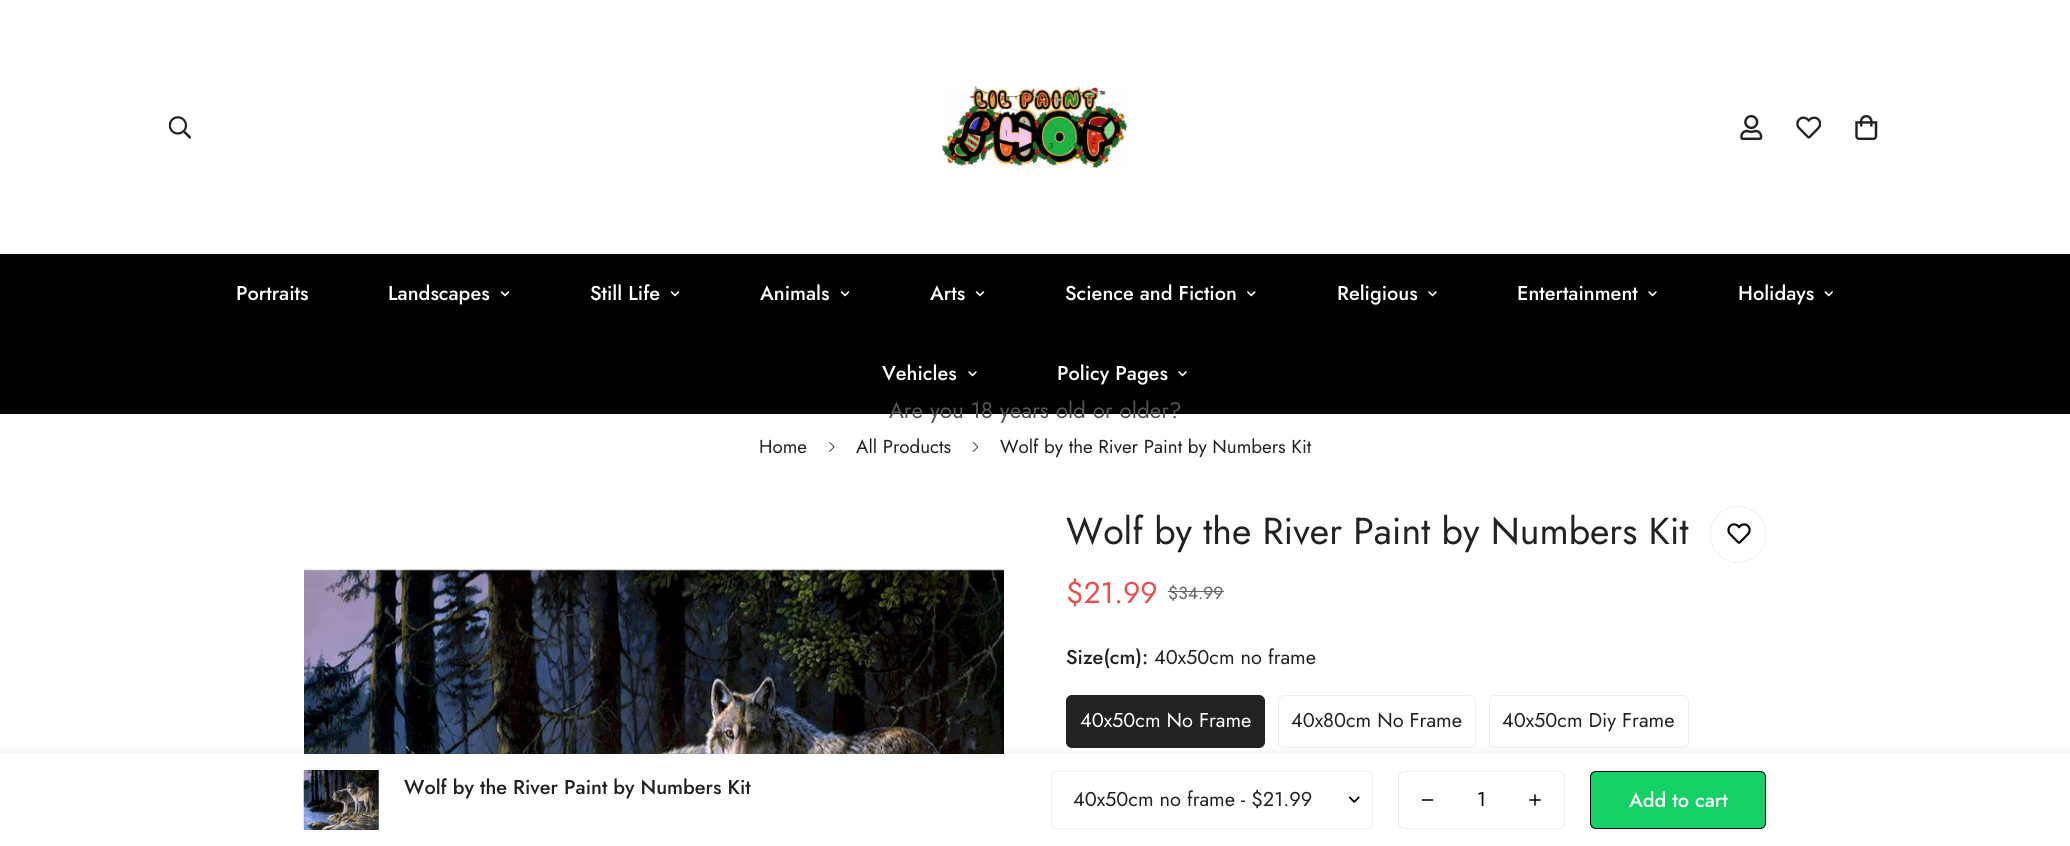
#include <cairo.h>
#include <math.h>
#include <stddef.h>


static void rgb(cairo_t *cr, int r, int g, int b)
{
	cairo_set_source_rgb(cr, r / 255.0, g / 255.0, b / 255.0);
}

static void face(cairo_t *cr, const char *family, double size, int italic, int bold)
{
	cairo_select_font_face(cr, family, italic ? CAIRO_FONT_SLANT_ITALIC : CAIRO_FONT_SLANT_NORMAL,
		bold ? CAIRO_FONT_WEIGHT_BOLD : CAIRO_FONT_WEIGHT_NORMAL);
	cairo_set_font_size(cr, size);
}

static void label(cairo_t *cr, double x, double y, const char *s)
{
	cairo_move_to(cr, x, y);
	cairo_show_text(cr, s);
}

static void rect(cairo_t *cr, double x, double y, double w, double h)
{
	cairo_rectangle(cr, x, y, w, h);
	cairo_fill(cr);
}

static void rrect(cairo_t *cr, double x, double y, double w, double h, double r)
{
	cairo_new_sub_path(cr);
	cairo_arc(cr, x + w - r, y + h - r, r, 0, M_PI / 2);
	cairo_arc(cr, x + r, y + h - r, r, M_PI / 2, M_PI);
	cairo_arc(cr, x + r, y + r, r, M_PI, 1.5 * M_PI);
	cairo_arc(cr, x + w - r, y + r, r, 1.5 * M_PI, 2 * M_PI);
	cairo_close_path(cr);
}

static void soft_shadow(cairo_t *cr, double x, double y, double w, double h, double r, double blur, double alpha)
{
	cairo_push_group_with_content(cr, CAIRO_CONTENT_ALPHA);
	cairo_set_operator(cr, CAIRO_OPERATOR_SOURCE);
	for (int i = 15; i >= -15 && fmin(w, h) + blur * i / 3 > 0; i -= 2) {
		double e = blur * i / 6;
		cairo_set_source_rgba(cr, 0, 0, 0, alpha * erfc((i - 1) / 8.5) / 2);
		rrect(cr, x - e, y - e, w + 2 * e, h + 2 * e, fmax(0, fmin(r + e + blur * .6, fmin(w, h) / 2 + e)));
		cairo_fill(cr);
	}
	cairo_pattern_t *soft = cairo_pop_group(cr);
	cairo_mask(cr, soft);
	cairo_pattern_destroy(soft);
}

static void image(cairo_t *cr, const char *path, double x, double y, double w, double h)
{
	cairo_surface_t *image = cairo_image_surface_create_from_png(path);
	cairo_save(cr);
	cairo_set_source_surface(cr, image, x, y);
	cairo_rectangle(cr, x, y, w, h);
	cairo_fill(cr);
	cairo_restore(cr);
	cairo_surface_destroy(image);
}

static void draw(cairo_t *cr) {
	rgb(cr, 255, 255, 255);
	cairo_paint(cr);
	image(cr, "image0.png", 169, 116, 22, 23);
	image(cr, "image1.png", 941, 85, 187, 84);
	image(cr, "image2.png", 1740, 115, 23, 25);
	image(cr, "image3.png", 1796, 116, 25, 23);
	image(cr, "image4.png", 1855, 115, 23, 25);
	rgb(cr, 0, 0, 0);
	rect(cr, 0, 254, 2070, 160);
	face(cr, "Jost Medium", 20, 0, 0);
	rgb(cr, 255, 255, 255);
	label(cr, 236, 300, "Portraits");
	label(cr, 388, 300, "Landscapes");
	image(cr, "image5.png", 500, 291, 10, 6);
	label(cr, 590, 300, "Still Life");
	image(cr, "image5.png", 670, 291, 10, 6);
	label(cr, 760, 300, "Animals");
	image(cr, "image5.png", 840, 291, 10, 6);
	label(cr, 930, 300, "Arts");
	image(cr, "image5.png", 975, 291, 10, 6);
	label(cr, 1065, 300, "Science and Fiction");
	image(cr, "image6.png", 1247, 291, 9, 6);
	label(cr, 1337, 300, "Religious");
	image(cr, "image7.png", 1428, 291, 9, 6);
	label(cr, 1517, 300, "Entertainment");
	image(cr, "image7.png", 1648, 291, 9, 6);
	label(cr, 1738, 300, "Holidays");
	image(cr, "image8.png", 1824, 291, 9, 6);
	label(cr, 882, 380, "Vehicles");
	image(cr, "image7.png", 968, 371, 9, 6);
	label(cr, 1057, 380, "Policy Pages");
	image(cr, "image7.png", 1178, 371, 9, 6);
	face(cr, "Jost", 22.5, 0, 0);
	rgb(cr, 86, 86, 86);
	label(cr, 889, 418, "Are you 18 years old or older?");
	face(cr, "Jost", 18.75, 0, 0);
	rgb(cr, 34, 34, 34);
	label(cr, 759, 453, "Home");
	image(cr, "image9.png", 829, 442, 6, 10);
	label(cr, 856, 453, "All Products");
	image(cr, "image10.png", 972, 442, 7, 10);
	label(cr, 1000, 453, "Wolf by the River Paint by Numbers Kit");
	image(cr, "image11.png", 304, 567, 700, 187);
	face(cr, "Jost", 37.5, 0, 0);
	label(cr, 1066, 544, "Wolf by the River Paint by Numbers Kit");
	rrect(cr, 1710.5, 506.5, 55, 56, 27.5);
	rgb(cr, 238, 238, 238);
	cairo_set_line_width(cr, 1);
	cairo_stroke(cr);
	image(cr, "image12.png", 1727, 523, 24, 21);
	face(cr, "Jost", 30, 0, 0);
	rgb(cr, 232, 78, 78);
	label(cr, 1066, 603, "$21.99");
	face(cr, "Jost", 17.5, 0, 0);
	rgb(cr, 102, 102, 102);
	label(cr, 1168, 599, "$34.99");
	rect(cr, 1168, 591, 56, 1);
	face(cr, "Jost Medium", 20, 0, 0);
	rgb(cr, 34, 34, 34);
	label(cr, 1066, 664, "Size(cm):");
	face(cr, "Jost", 20, 0, 0);
	label(cr, 1154, 664, "40x50cm no frame");
	rrect(cr, 1066.5, 695.5, 198, 52, 5.5);
	cairo_fill_preserve(cr);
	cairo_stroke(cr);
	rgb(cr, 255, 255, 255);
	label(cr, 1080, 727, "40x50cm No Frame");
	rrect(cr, 1278.5, 695.5, 197, 52, 5.5);
	rgb(cr, 238, 238, 238);
	cairo_stroke(cr);
	rgb(cr, 34, 34, 34);
	label(cr, 1291, 727, "40x80cm No Frame");
	rrect(cr, 1489.5, 695.5, 199, 52, 5.5);
	rgb(cr, 238, 238, 238);
	cairo_stroke(cr);
	rgb(cr, 34, 34, 34);
	label(cr, 1502, 727, "40x50cm Diy Frame");
	rgb(cr, 0, 0, 0);
	soft_shadow(cr, 0, 754, 2070, 92, 0, 6, 0.09);
	rgb(cr, 255, 255, 255);
	rect(cr, 0, 754, 2070, 92);
	image(cr, "image13.png", 303, 769, 76, 62);
	face(cr, "Jost Medium", 20, 0, 0);
	rgb(cr, 34, 34, 34);
	label(cr, 404, 794, "Wolf by the River Paint by Numbers Kit");
	image(cr, "image14.png", 1348, 796, 12, 7);
	rrect(cr, 1051.5, 771.5, 321, 57, 4.5);
	rgb(cr, 238, 238, 238);
	cairo_stroke(cr);
	face(cr, "Jost", 20, 0, 0);
	rgb(cr, 34, 34, 34);
	label(cr, 1073, 806, "40x50cm no frame - $21.99");
	rrect(cr, 1398.5, 771.5, 166, 57, 5.5);
	rgb(cr, 238, 238, 238);
	cairo_stroke(cr);
	image(cr, "image15.png", 1421, 799, 13, 2);
	rgb(cr, 0, 0, 0);
	label(cr, 1477, 806, "1");
	image(cr, "image16.png", 1529, 794, 12, 12);
	rgb(cr, 20, 209, 101);
	rrect(cr, 1590.5, 771.5, 175, 57, 5.5);
	cairo_fill_preserve(cr);
	rgb(cr, 0, 0, 0);
	cairo_stroke(cr);
	face(cr, "Jost Medium", 20, 0, 0);
	rgb(cr, 255, 255, 255);
	label(cr, 1629, 807, "Add to cart");
}

int main(void) {
	cairo_surface_t *surface = cairo_image_surface_create(CAIRO_FORMAT_RGB24, 2070, 846);
	cairo_t *cr = cairo_create(surface);
	cairo_font_options_t *options = cairo_font_options_create();
	cairo_font_options_set_hint_metrics(options, CAIRO_HINT_METRICS_OFF);
	cairo_font_options_set_hint_style(options, CAIRO_HINT_STYLE_NONE);
	cairo_set_font_options(cr, options);
	cairo_set_miter_limit(cr, 4);
	draw(cr);
	cairo_surface_write_to_png(surface, "render.png");
	cairo_font_options_destroy(options);
	cairo_destroy(cr);
	cairo_surface_destroy(surface);
	return 0;
}
